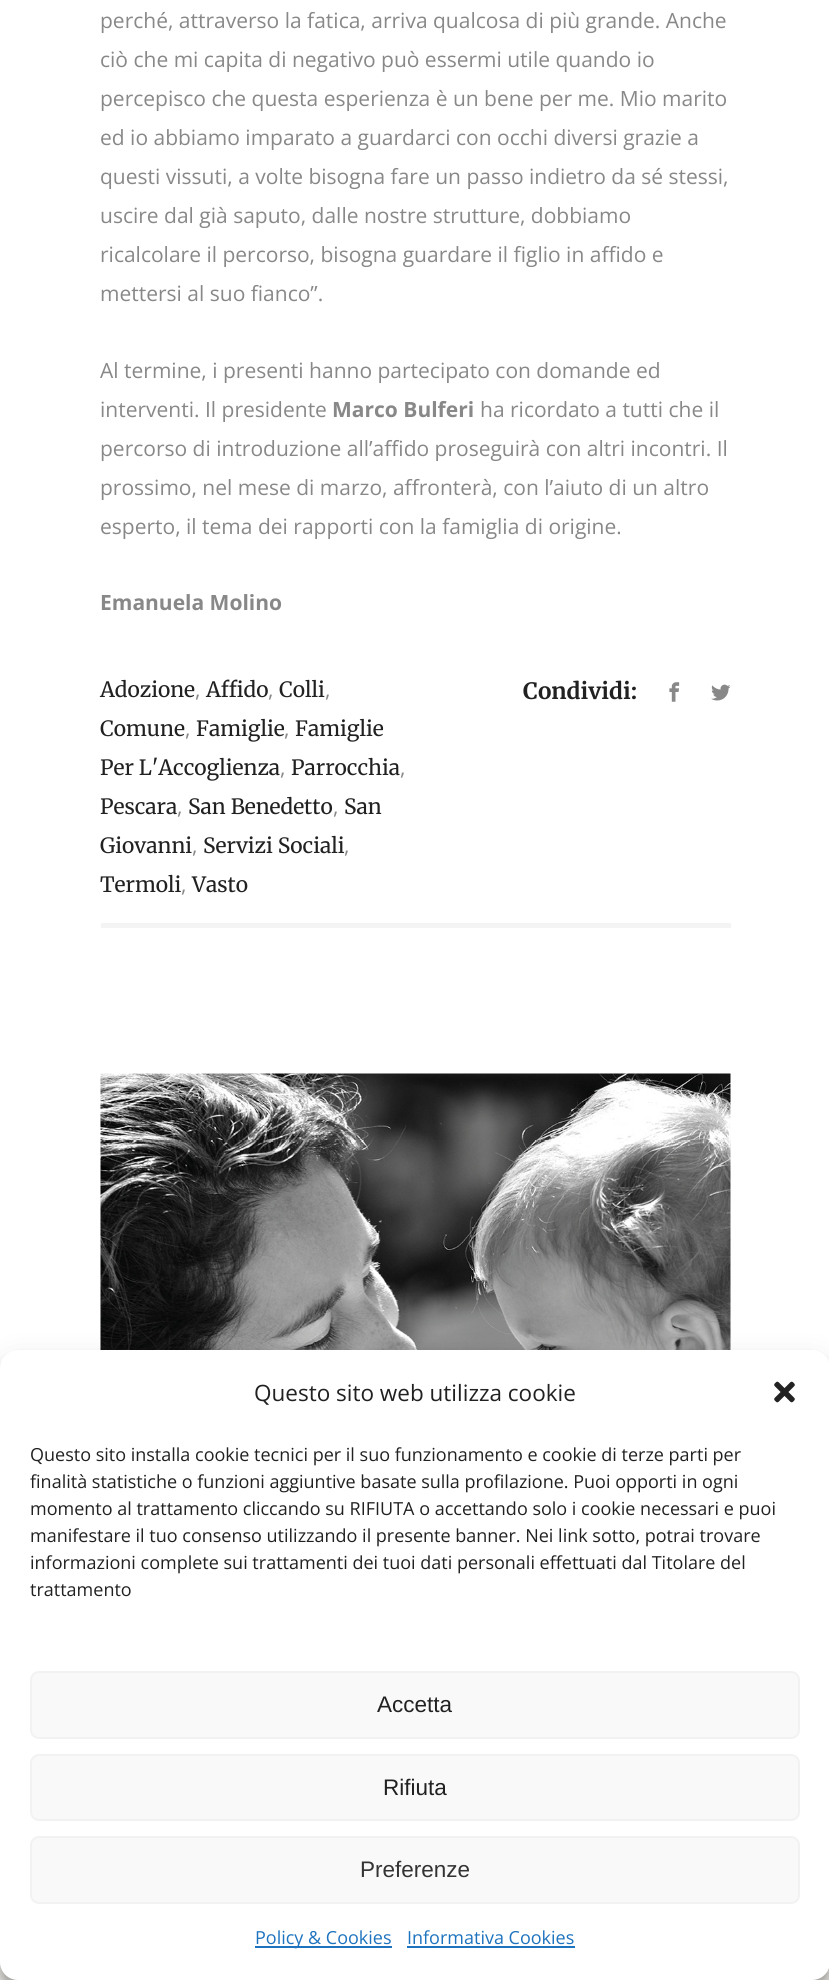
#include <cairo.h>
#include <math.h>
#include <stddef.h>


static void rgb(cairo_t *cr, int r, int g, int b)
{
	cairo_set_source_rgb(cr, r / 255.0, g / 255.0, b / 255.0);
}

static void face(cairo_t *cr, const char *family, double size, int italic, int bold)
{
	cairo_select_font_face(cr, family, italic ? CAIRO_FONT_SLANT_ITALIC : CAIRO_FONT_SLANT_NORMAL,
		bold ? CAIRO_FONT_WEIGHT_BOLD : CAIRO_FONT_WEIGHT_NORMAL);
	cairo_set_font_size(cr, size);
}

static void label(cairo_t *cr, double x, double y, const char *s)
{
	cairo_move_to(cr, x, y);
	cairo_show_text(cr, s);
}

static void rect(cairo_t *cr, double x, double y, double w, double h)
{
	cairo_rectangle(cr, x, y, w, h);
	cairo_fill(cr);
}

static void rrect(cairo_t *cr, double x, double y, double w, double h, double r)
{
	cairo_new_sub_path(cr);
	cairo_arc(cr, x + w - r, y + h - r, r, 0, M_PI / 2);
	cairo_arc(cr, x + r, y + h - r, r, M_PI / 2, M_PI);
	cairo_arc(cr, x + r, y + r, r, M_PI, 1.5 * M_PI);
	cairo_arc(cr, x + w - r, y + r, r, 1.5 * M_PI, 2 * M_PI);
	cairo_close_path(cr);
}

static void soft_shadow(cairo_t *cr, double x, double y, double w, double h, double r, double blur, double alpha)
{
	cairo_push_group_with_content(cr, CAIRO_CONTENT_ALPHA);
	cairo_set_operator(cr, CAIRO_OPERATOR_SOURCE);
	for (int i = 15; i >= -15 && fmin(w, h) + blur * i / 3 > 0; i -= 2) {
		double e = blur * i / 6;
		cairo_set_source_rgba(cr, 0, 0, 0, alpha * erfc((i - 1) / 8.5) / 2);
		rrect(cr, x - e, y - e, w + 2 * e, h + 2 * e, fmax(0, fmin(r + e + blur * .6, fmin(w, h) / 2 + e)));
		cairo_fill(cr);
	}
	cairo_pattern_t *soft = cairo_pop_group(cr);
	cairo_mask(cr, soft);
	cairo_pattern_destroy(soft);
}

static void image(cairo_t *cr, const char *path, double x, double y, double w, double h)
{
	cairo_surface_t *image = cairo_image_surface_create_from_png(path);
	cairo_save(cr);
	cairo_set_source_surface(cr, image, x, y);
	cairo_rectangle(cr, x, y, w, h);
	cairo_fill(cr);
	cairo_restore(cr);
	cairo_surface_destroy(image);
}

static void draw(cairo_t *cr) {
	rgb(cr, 255, 255, 255);
	cairo_paint(cr);
	rgb(cr, 244, 244, 244);
	rect(cr, 101, 923, 630, 5);
	face(cr, "Open Sans", 21, 0, 0);
	rgb(cr, 136, 136, 136);
	label(cr, 100, 28, "perché, attraverso la fatica, arriva qualcosa di più grande. Anche");
	label(cr, 100, 67, "ciò che mi capita di negativo può essermi utile quando io");
	label(cr, 100, 106, "percepisco che questa esperienza è un bene per me. Mio marito");
	label(cr, 100, 145, "ed io abbiamo imparato a guardarci con occhi diversi grazie a");
	label(cr, 100, 184, "questi vissuti, a volte bisogna fare un passo indietro da sé stessi,");
	label(cr, 100, 223, "uscire dal già saputo, dalle nostre strutture, dobbiamo");
	label(cr, 100, 262, "ricalcolare il percorso, bisogna guardare il figlio in affido e");
	label(cr, 100, 301, "mettersi al suo fianco”.");
	label(cr, 100, 378, "Al termine, i presenti hanno partecipato con domande ed");
	label(cr, 100, 417, "interventi. Il presidente");
	face(cr, "Open Sans", 21, 0, 1);
	label(cr, 332, 417, "Marco Bulferi");
	face(cr, "Open Sans", 21, 0, 0);
	label(cr, 480, 417, "ha ricordato a tutti che il");
	label(cr, 100, 456, "percorso di introduzione all’affido proseguirà con altri incontri. Il");
	label(cr, 100, 495, "prossimo, nel mese di marzo, affronterà, con l’aiuto di un altro");
	label(cr, 100, 534, "esperto, il tema dei rapporti con la famiglia di origine.");
	face(cr, "Open Sans", 21, 0, 1);
	label(cr, 100, 610, "Emanuela Molino");
	face(cr, "Merriweather", 21, 0, 0);
	rgb(cr, 33, 33, 33);
	label(cr, 100, 697, "Adozione");
	face(cr, "Open Sans", 21, 0, 0);
	rgb(cr, 136, 136, 136);
	label(cr, 195, 697, ",");
	face(cr, "Merriweather", 21, 0, 0);
	rgb(cr, 33, 33, 33);
	label(cr, 206, 697, "Affido");
	face(cr, "Open Sans", 21, 0, 0);
	rgb(cr, 136, 136, 136);
	label(cr, 268, 697, ",");
	face(cr, "Merriweather", 21, 0, 0);
	rgb(cr, 33, 33, 33);
	label(cr, 279, 697, "Colli");
	face(cr, "Open Sans", 21, 0, 0);
	rgb(cr, 136, 136, 136);
	label(cr, 325, 697, ",");
	face(cr, "Merriweather", 21, 0, 0);
	rgb(cr, 33, 33, 33);
	label(cr, 100, 736, "Comune");
	face(cr, "Open Sans", 21, 0, 0);
	rgb(cr, 136, 136, 136);
	label(cr, 185, 736, ",");
	face(cr, "Merriweather", 21, 0, 0);
	rgb(cr, 33, 33, 33);
	label(cr, 196, 736, "Famiglie");
	face(cr, "Open Sans", 21, 0, 0);
	rgb(cr, 136, 136, 136);
	label(cr, 284, 736, ",");
	face(cr, "Merriweather", 21, 0, 0);
	rgb(cr, 33, 33, 33);
	label(cr, 295, 736, "Famiglie");
	label(cr, 100, 775, "Per L'Accoglienza");
	face(cr, "Open Sans", 21, 0, 0);
	rgb(cr, 136, 136, 136);
	label(cr, 280, 775, ",");
	face(cr, "Merriweather", 21, 0, 0);
	rgb(cr, 33, 33, 33);
	label(cr, 291, 775, "Parrocchia");
	face(cr, "Open Sans", 21, 0, 0);
	rgb(cr, 136, 136, 136);
	label(cr, 400, 775, ",");
	face(cr, "Merriweather", 21, 0, 0);
	rgb(cr, 33, 33, 33);
	label(cr, 100, 814, "Pescara");
	face(cr, "Open Sans", 21, 0, 0);
	rgb(cr, 136, 136, 136);
	label(cr, 177, 814, ",");
	face(cr, "Merriweather", 21, 0, 0);
	rgb(cr, 33, 33, 33);
	label(cr, 188, 814, "San Benedetto");
	face(cr, "Open Sans", 21, 0, 0);
	rgb(cr, 136, 136, 136);
	label(cr, 333, 814, ",");
	face(cr, "Merriweather", 21, 0, 0);
	rgb(cr, 33, 33, 33);
	label(cr, 344, 814, "San");
	label(cr, 100, 853, "Giovanni");
	face(cr, "Open Sans", 21, 0, 0);
	rgb(cr, 136, 136, 136);
	label(cr, 192, 853, ",");
	face(cr, "Merriweather", 21, 0, 0);
	rgb(cr, 33, 33, 33);
	label(cr, 203, 853, "Servizi Sociali");
	face(cr, "Open Sans", 21, 0, 0);
	rgb(cr, 136, 136, 136);
	label(cr, 344, 853, ",");
	face(cr, "Merriweather", 21, 0, 0);
	rgb(cr, 33, 33, 33);
	label(cr, 100, 892, "Termoli");
	face(cr, "Open Sans", 21, 0, 0);
	rgb(cr, 136, 136, 136);
	label(cr, 181, 892, ",");
	face(cr, "Merriweather", 21, 0, 0);
	rgb(cr, 33, 33, 33);
	label(cr, 192, 892, "Vasto");
	face(cr, "Merriweather", 22.5, 0, 1);
	label(cr, 523, 699, "Condividi:");
	image(cr, "image0.png", 669, 682, 11, 20);
	image(cr, "image1.png", 711, 684, 20, 17);
	image(cr, "image2.png", 100, 1073, 631, 277);
	rgb(cr, 246, 244, 238);
	rect(cr, 0, 1962, 829, 18);
	rgb(cr, 0, 0, 0);
	soft_shadow(cr, 0, 1359, 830, 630, 18, 4.5, 0.23);
	soft_shadow(cr, 0, 1365, 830, 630, 18, 15, 0.19);
	rgb(cr, 255, 255, 255);
	rrect(cr, 0, 1350, 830, 630, 18);
	cairo_fill(cr);
	face(cr, "Open Sans", 22.5, 0, 0);
	rgb(cr, 33, 33, 33);
	label(cr, 254, 1401, "Questo sito web utilizza cookie");
	image(cr, "image3.png", 774, 1381, 21, 22);
	face(cr, "Open Sans", 18, 0, 0);
	label(cr, 30, 1461, "Questo sito installa cookie tecnici per il suo funzionamento e cookie di terze parti per");
	label(cr, 30, 1488, "finalità statistiche o funzioni aggiuntive basate sulla profilazione. Puoi opporti in ogni");
	label(cr, 30, 1515, "momento al trattamento cliccando su RIFIUTA o accettando solo i cookie necessari e puoi");
	label(cr, 30, 1542, "manifestare il tuo consenso utilizzando il presente banner. Nei link sotto, potrai trovare");
	label(cr, 30, 1569, "informazioni complete sui trattamenti dei tuoi dati personali effettuati dal Titolare del");
	label(cr, 30, 1596, "trattamento");
	rgb(cr, 249, 249, 249);
	rrect(cr, 31, 1672, 768, 66, 8);
	cairo_fill_preserve(cr);
	rgb(cr, 242, 242, 242);
	cairo_stroke(cr);
	face(cr, "Liberation Sans", 22.5, 0, 0);
	rgb(cr, 33, 33, 33);
	label(cr, 377, 1712, "Accetta");
	rgb(cr, 249, 249, 249);
	rrect(cr, 31, 1755, 768, 65, 8);
	cairo_fill_preserve(cr);
	rgb(cr, 242, 242, 242);
	cairo_stroke(cr);
	rgb(cr, 33, 33, 33);
	label(cr, 383, 1795, "Rifiuta");
	rgb(cr, 249, 249, 249);
	rrect(cr, 31, 1837, 768, 66, 8);
	cairo_fill_preserve(cr);
	rgb(cr, 242, 242, 242);
	cairo_stroke(cr);
	rgb(cr, 51, 51, 51);
	label(cr, 360, 1877, "Preferenze");
	rgb(cr, 30, 115, 190);
	rect(cr, 255, 1946, 137, 2);
	face(cr, "Open Sans", 18, 0, 0);
	label(cr, 255, 1944, "Policy & Cookies");
	label(cr, 407, 1944, "Informativa Cookies");
	rect(cr, 407, 1946, 168, 2);
}

int main(void) {
	cairo_surface_t *surface = cairo_image_surface_create(CAIRO_FORMAT_RGB24, 829, 1980);
	cairo_t *cr = cairo_create(surface);
	cairo_font_options_t *options = cairo_font_options_create();
	cairo_font_options_set_hint_metrics(options, CAIRO_HINT_METRICS_OFF);
	cairo_font_options_set_hint_style(options, CAIRO_HINT_STYLE_NONE);
	cairo_set_font_options(cr, options);
	cairo_set_miter_limit(cr, 4);
	draw(cr);
	cairo_surface_write_to_png(surface, "render.png");
	cairo_font_options_destroy(options);
	cairo_destroy(cr);
	cairo_surface_destroy(surface);
	return 0;
}
